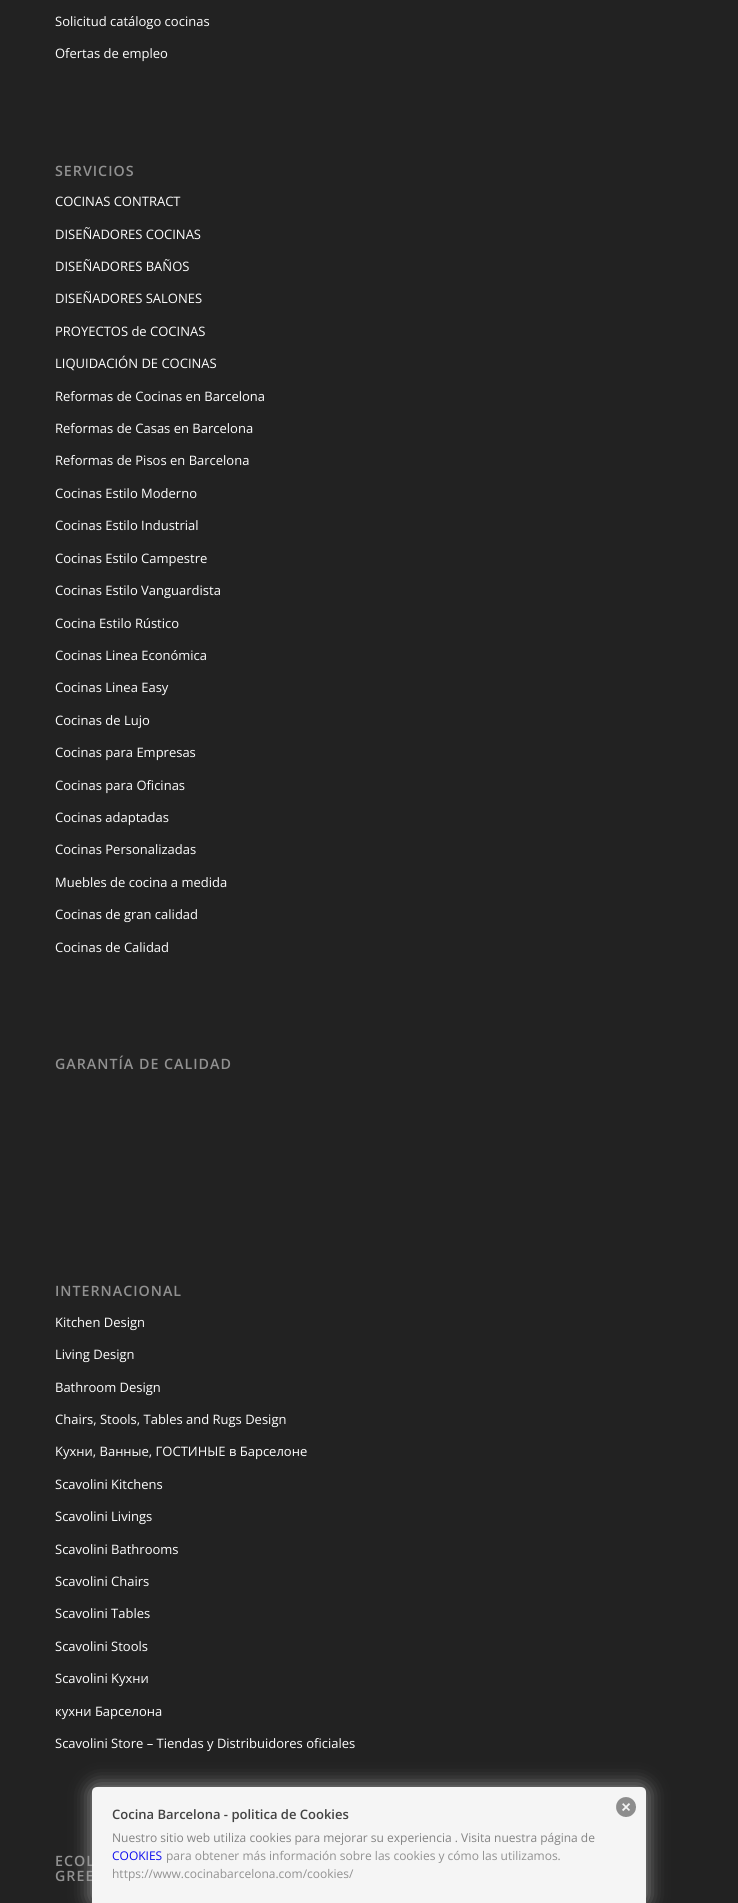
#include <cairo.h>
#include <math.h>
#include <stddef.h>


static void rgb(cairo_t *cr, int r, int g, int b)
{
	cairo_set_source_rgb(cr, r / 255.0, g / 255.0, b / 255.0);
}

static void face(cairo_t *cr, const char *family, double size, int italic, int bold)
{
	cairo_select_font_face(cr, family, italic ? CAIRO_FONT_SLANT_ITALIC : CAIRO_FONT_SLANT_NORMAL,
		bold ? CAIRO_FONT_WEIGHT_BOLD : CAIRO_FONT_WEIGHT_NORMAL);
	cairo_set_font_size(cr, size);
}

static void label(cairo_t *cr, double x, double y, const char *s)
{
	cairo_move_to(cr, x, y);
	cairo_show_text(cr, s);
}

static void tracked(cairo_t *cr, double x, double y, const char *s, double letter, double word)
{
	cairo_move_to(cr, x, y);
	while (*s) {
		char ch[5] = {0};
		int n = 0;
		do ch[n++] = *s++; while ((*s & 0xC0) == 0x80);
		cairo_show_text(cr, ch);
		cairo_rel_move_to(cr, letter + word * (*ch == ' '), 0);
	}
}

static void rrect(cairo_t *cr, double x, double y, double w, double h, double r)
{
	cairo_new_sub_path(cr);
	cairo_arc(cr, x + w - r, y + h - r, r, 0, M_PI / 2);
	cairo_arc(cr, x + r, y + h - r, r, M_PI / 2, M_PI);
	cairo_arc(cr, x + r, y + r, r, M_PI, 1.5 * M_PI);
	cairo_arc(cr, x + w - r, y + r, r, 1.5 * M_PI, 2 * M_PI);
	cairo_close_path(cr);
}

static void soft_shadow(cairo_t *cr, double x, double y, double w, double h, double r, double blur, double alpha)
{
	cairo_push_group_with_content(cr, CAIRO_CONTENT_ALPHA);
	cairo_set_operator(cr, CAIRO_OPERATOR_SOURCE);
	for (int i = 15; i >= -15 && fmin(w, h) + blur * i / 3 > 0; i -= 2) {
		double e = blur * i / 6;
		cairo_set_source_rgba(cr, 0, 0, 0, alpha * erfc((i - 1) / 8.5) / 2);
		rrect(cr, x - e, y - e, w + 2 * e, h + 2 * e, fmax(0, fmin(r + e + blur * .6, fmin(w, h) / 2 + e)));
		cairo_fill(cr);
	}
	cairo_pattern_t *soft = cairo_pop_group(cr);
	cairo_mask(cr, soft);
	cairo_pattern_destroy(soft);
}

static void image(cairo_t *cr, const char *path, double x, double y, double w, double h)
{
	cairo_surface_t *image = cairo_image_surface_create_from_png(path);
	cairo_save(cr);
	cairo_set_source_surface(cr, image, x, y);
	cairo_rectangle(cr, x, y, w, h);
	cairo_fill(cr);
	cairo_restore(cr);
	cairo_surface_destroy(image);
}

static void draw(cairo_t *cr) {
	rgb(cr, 34, 34, 34);
	cairo_paint(cr);
	face(cr, "Open Sans", 13, 0, 0);
	rgb(cr, 255, 255, 255);
	label(cr, 55, 26, "Solicitud catálogo cocinas");
	label(cr, 55, 58, "Ofertas de empleo");
	face(cr, "Open Sans SemiBold", 14.25, 0, 0);
	rgb(cr, 145, 145, 145);
	tracked(cr, 55, 176, "SERVICIOS", 1, 0);
	face(cr, "Open Sans", 13, 0, 0);
	rgb(cr, 255, 255, 255);
	label(cr, 55, 206, "COCINAS CONTRACT");
	label(cr, 55, 239, "DISEÑADORES COCINAS");
	label(cr, 55, 271, "DISEÑADORES BAÑOS");
	label(cr, 55, 303, "DISEÑADORES SALONES");
	label(cr, 55, 336, "PROYECTOS de COCINAS");
	label(cr, 55, 368, "LIQUIDACIÓN DE COCINAS");
	label(cr, 55, 401, "Reformas de Cocinas en Barcelona");
	label(cr, 55, 433, "Reformas de Casas en Barcelona");
	label(cr, 55, 465, "Reformas de Pisos en Barcelona");
	label(cr, 55, 498, "Cocinas Estilo Moderno");
	label(cr, 55, 530, "Cocinas Estilo Industrial");
	label(cr, 55, 563, "Cocinas Estilo Campestre");
	label(cr, 55, 595, "Cocinas Estilo Vanguardista");
	label(cr, 55, 628, "Cocina Estilo Rústico");
	label(cr, 55, 660, "Cocinas Linea Económica");
	label(cr, 55, 692, "Cocinas Linea Easy");
	label(cr, 55, 725, "Cocinas de Lujo");
	label(cr, 55, 757, "Cocinas para Empresas");
	label(cr, 55, 790, "Cocinas para Oficinas");
	label(cr, 55, 822, "Cocinas adaptadas");
	label(cr, 55, 854, "Cocinas Personalizadas");
	label(cr, 55, 887, "Muebles de cocina a medida");
	label(cr, 55, 919, "Cocinas de gran calidad");
	label(cr, 55, 952, "Cocinas de Calidad");
	face(cr, "Open Sans SemiBold", 14.25, 0, 0);
	rgb(cr, 145, 145, 145);
	tracked(cr, 55, 1069, "GARANTÍA DE CALIDAD", 1, 0);
	tracked(cr, 55, 1296, "INTERNACIONAL", 1, 0);
	face(cr, "Open Sans", 13, 0, 0);
	rgb(cr, 255, 255, 255);
	label(cr, 55, 1327, "Kitchen Design");
	label(cr, 55, 1359, "Living Design");
	label(cr, 55, 1392, "Bathroom Design");
	label(cr, 55, 1424, "Chairs, Stools, Tables and Rugs Design");
	label(cr, 55, 1456, "Kухни, Ванные, ГОСТИНЫЕ в Барселоне");
	label(cr, 55, 1489, "Scavolini Kitchens");
	label(cr, 55, 1521, "Scavolini Livings");
	label(cr, 55, 1554, "Scavolini Bathrooms");
	label(cr, 55, 1586, "Scavolini Chairs");
	label(cr, 55, 1618, "Scavolini Tables");
	label(cr, 55, 1651, "Scavolini Stools");
	label(cr, 55, 1683, "Scavolini Kухни");
	label(cr, 55, 1716, "кухни Барселона");
	label(cr, 55, 1748, "Scavolini Store – Tiendas y Distribuidores oficiales");
	face(cr, "Open Sans SemiBold", 14.25, 0, 0);
	rgb(cr, 145, 145, 145);
	tracked(cr, 55, 1866, "ECOL", 1, 0);
	tracked(cr, 55, 1881, "GREE", 1, 0);
	cairo_save(cr);
	cairo_set_fill_rule(cr, CAIRO_FILL_RULE_EVEN_ODD);
	cairo_new_path(cr);
	cairo_move_to(cr, 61, 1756);
	cairo_line_to(cr, 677, 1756);
	cairo_line_to(cr, 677, 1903);
	cairo_line_to(cr, 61, 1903);
	cairo_close_path(cr);
	cairo_move_to(cr, 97, 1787);
	cairo_line_to(cr, 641, 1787);
	cairo_curve_to(cr, 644, 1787, 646, 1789, 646, 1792);
	cairo_line_to(cr, 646, 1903);
	cairo_line_to(cr, 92, 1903);
	cairo_line_to(cr, 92, 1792);
	cairo_curve_to(cr, 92, 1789, 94, 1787, 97, 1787);
	cairo_close_path(cr);
	cairo_clip(cr);
	rgb(cr, 161, 161, 161);
	soft_shadow(cr, 92, 1787, 554, 116, 5, 10, 0.95);
	cairo_restore(cr);
	cairo_set_source_rgba(cr, 1, 1, 1, 0.95);
	cairo_new_path(cr);
	cairo_move_to(cr, 97, 1787);
	cairo_line_to(cr, 641, 1787);
	cairo_curve_to(cr, 644, 1787, 646, 1789, 646, 1792);
	cairo_line_to(cr, 646, 1903);
	cairo_line_to(cr, 92, 1903);
	cairo_line_to(cr, 92, 1792);
	cairo_curve_to(cr, 92, 1789, 94, 1787, 97, 1787);
	cairo_close_path(cr);
	cairo_fill(cr);
	face(cr, "Open Sans SemiBold", 13, 0, 0);
	rgb(cr, 66, 66, 66);
	label(cr, 112, 1819, "Cocina Barcelona - politica de Cookies");
	image(cr, "image0.png", 616, 1797, 20, 20);
	face(cr, "Open Sans", 12, 0, 0);
	rgb(cr, 131, 131, 131);
	label(cr, 112, 1842, "Nuestro sitio web utiliza cookies para mejorar su experiencia . Visita nuestra página de");
	rgb(cr, 12, 12, 238);
	label(cr, 112, 1860, "COOKIES");
	rgb(cr, 145, 145, 145);
	label(cr, 166, 1860, "para obtener más información sobre las cookies y cómo las utilizamos.");
	label(cr, 112, 1878, "https://www.cocinabarcelona.com/cookies/");
}

int main(void) {
	cairo_surface_t *surface = cairo_image_surface_create(CAIRO_FORMAT_RGB24, 738, 1903);
	cairo_t *cr = cairo_create(surface);
	cairo_font_options_t *options = cairo_font_options_create();
	cairo_font_options_set_hint_metrics(options, CAIRO_HINT_METRICS_OFF);
	cairo_font_options_set_hint_style(options, CAIRO_HINT_STYLE_NONE);
	cairo_set_font_options(cr, options);
	cairo_set_miter_limit(cr, 4);
	draw(cr);
	cairo_surface_write_to_png(surface, "render.png");
	cairo_font_options_destroy(options);
	cairo_destroy(cr);
	cairo_surface_destroy(surface);
	return 0;
}
